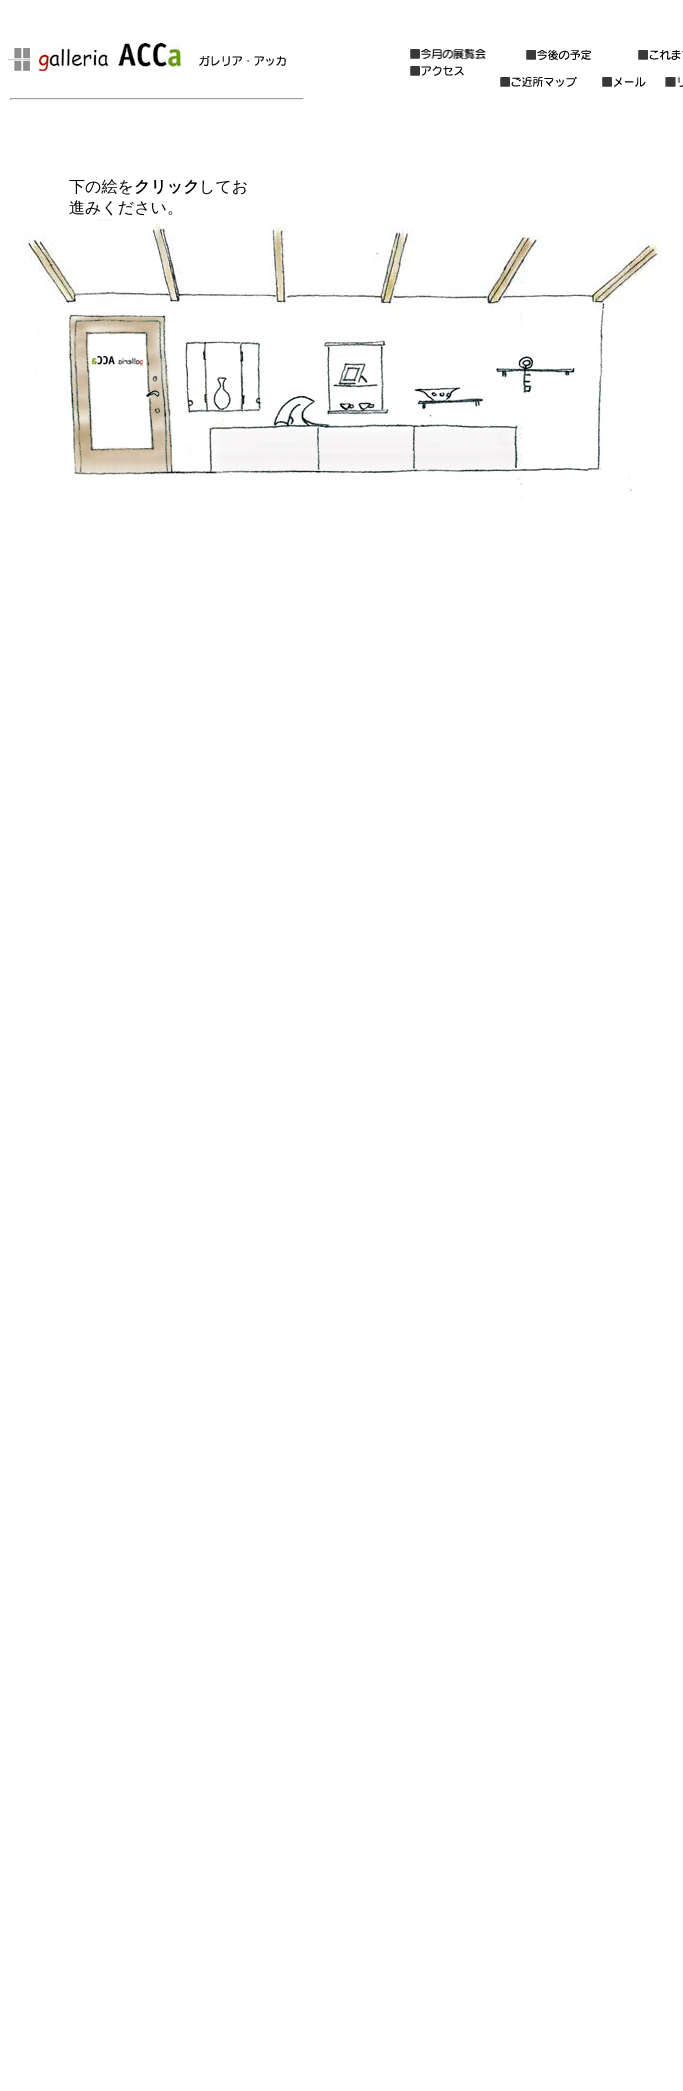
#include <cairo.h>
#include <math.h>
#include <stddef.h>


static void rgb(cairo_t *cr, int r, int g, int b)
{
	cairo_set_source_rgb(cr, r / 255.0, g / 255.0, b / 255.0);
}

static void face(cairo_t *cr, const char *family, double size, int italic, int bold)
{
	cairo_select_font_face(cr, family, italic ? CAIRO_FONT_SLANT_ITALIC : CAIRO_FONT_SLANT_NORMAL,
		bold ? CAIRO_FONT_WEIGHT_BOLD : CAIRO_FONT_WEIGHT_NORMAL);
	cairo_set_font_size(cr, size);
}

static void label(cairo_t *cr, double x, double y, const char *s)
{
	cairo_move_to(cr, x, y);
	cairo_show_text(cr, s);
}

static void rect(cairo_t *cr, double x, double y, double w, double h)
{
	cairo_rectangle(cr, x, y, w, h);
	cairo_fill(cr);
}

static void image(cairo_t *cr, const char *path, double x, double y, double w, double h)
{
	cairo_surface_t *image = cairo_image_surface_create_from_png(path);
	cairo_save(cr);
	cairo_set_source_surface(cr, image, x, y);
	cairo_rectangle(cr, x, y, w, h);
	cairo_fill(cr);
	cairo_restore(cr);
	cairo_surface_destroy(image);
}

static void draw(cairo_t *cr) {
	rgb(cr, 255, 255, 255);
	cairo_paint(cr);
	image(cr, "image0.png", 39, 43, 142, 28);
	image(cr, "image1.png", 8, 48, 22, 23);
	image(cr, "image2.png", 526, 50, 65, 10);
	image(cr, "image3.png", 638, 50, 45, 10);
	image(cr, "image4.png", 410, 49, 76, 10);
	image(cr, "image5.png", 199, 55, 87, 11);
	image(cr, "image6.png", 410, 66, 54, 10);
	image(cr, "image7.png", 500, 76, 77, 11);
	image(cr, "image8.png", 602, 77, 44, 10);
	image(cr, "image9.png", 665, 77, 18, 10);
	rgb(cr, 159, 159, 159);
	rect(cr, 10, 98, 294, 1);
	rgb(cr, 238, 238, 238);
	rect(cr, 303, 98, 1, 2);
	rect(cr, 10, 99, 294, 1);
	rgb(cr, 159, 159, 159);
	rect(cr, 10, 98, 1, 2);
	face(cr, "WenQuanYi Zen Hei Medium", 16, 0, 0);
	rgb(cr, 0, 0, 0);
	label(cr, 69, 192, "下の絵を");
	face(cr, "WenQuanYi Zen Hei", 16, 0, 1);
	label(cr, 134, 192, "クリック");
	face(cr, "WenQuanYi Zen Hei Medium", 16, 0, 0);
	label(cr, 199, 192, "してお");
	label(cr, 69, 213, "進みください。");
	image(cr, "image10.png", 22, 219, 640, 90);
	image(cr, "image11.png", 35, 329, 16, 45);
	image(cr, "image12.png", 588, 310, 59, 182);
	image(cr, "image13.png", 61, 311, 115, 128);
	image(cr, "image14.png", 184, 335, 83, 104);
	image(cr, "image15.png", 267, 311, 55, 128);
	image(cr, "image16.png", 322, 335, 77, 104);
	image(cr, "image17.png", 399, 383, 91, 56);
	image(cr, "image18.png", 490, 312, 88, 127);
	image(cr, "image19.png", 73, 439, 515, 59);
}

int main(void) {
	cairo_surface_t *surface = cairo_image_surface_create(CAIRO_FORMAT_RGB24, 683, 2091);
	cairo_t *cr = cairo_create(surface);
	cairo_font_options_t *options = cairo_font_options_create();
	cairo_font_options_set_hint_metrics(options, CAIRO_HINT_METRICS_OFF);
	cairo_font_options_set_hint_style(options, CAIRO_HINT_STYLE_NONE);
	cairo_set_font_options(cr, options);
	cairo_set_miter_limit(cr, 4);
	draw(cr);
	cairo_surface_write_to_png(surface, "render.png");
	cairo_font_options_destroy(options);
	cairo_destroy(cr);
	cairo_surface_destroy(surface);
	return 0;
}
